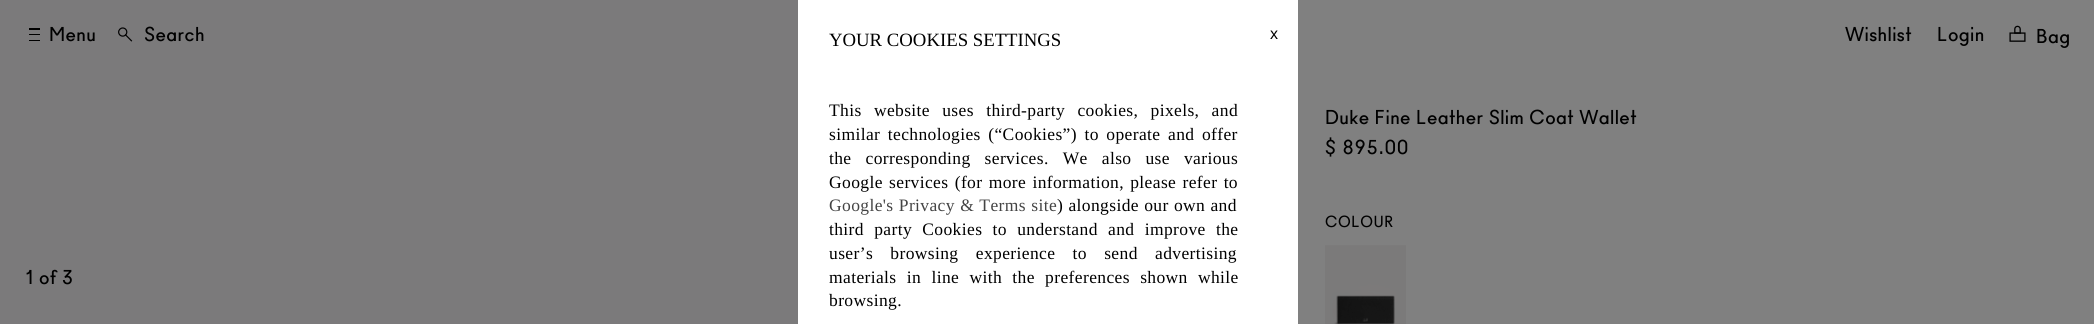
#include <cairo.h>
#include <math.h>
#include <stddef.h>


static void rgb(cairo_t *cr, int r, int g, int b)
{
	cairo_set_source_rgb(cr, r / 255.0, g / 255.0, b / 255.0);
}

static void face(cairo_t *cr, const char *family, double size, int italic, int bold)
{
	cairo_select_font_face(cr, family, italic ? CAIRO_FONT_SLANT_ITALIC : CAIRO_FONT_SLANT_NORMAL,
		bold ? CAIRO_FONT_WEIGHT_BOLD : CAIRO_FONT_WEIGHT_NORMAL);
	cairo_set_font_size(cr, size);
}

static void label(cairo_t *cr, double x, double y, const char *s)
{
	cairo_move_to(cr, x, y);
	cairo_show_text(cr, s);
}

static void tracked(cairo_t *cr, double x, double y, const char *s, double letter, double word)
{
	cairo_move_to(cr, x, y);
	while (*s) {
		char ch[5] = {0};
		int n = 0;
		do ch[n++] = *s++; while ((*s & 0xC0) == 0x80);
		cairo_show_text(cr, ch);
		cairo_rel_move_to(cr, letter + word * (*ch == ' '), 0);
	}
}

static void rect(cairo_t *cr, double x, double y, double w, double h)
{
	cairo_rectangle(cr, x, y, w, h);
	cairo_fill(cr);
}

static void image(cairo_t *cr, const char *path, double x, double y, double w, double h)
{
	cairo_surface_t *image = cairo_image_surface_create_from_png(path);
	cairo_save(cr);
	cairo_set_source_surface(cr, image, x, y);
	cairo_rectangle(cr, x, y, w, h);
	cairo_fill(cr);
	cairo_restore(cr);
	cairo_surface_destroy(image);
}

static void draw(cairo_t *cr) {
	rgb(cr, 128, 128, 128);
	cairo_paint(cr);
	rgb(cr, 123, 122, 123);
	rect(cr, 0, 0, 798, 324);
	rgb(cr, 0, 0, 0);
	rect(cr, 29, 28, 11, 2);
	rect(cr, 29, 34, 11, 1);
	rect(cr, 29, 40, 11, 1);
	face(cr, "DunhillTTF", 18.75, 0, 0);
	tracked(cr, 49, 41, "Menu", 0.38, 0);
	image(cr, "image0.png", 118, 27, 15, 15);
	tracked(cr, 144, 41, "Search", 0.38, 0);
	tracked(cr, 1845, 41, "Wishlist", 0.38, 0);
	tracked(cr, 1937, 41, "Login", 0.38, 0);
	image(cr, "image1.png", 2009, 25, 17, 17);
	tracked(cr, 2036, 43, "Bag", 0.38, 0);
	tracked(cr, 1325, 124, "Duke Fine Leather Slim Coat Wallet", 0.38, 0);
	tracked(cr, 1325, 154, "$ 895.00", 1.25, 0);
	face(cr, "DunhillTTF", 15, 0, 0);
	tracked(cr, 1325, 227, "COLOUR", 0.5, 0);
	image(cr, "image2.png", 1325, 245, 81, 79);
	face(cr, "DunhillTTF", 18.75, 0, 0);
	tracked(cr, 25, 284, "1 of 3", 0.38, 0);
	rgb(cr, 255, 255, 255);
	rect(cr, 798, 0, 500, 324);
	face(cr, "Liberation Serif", 18.75, 0, 0);
	rgb(cr, 0, 0, 0);
	label(cr, 829, 46, "YOUR COOKIES SETTINGS");
	face(cr, "Liberation Serif", 17.5, 0, 0);
	tracked(cr, 829, 116, "This website uses third-party cookies, pixels, and", 0.38, 7.5);
	tracked(cr, 829, 140, "similar technologies (“Cookies”) to operate and offer", 0.38, 2.75);
	tracked(cr, 829, 164, "the corresponding services. We also use various", 0.38, 9.25);
	tracked(cr, 829, 188, "Google services (for more information, please refer to", 0.38, 1.5);
	rgb(cr, 68, 68, 68);
	tracked(cr, 829, 211, "Google's Privacy & Terms site", 0.38, 0.5);
	rgb(cr, 0, 0, 0);
	tracked(cr, 1057, 211, ") alongside our own and", 0.38, 0.5);
	tracked(cr, 829, 235, "third party Cookies to understand and improve the", 0.38, 5.5);
	tracked(cr, 829, 259, "user’s browsing experience to send advertising", 0.38, 12.5);
	tracked(cr, 829, 283, "materials in line with the preferences shown while", 0.38, 5.5);
	tracked(cr, 829, 306, "browsing.", 0.38, 0);
	face(cr, "Liberation Sans", 16, 0, 0);
	label(cr, 1270, 39, "x");
}

int main(void) {
	cairo_surface_t *surface = cairo_image_surface_create(CAIRO_FORMAT_RGB24, 2094, 324);
	cairo_t *cr = cairo_create(surface);
	cairo_font_options_t *options = cairo_font_options_create();
	cairo_font_options_set_hint_metrics(options, CAIRO_HINT_METRICS_OFF);
	cairo_font_options_set_hint_style(options, CAIRO_HINT_STYLE_NONE);
	cairo_set_font_options(cr, options);
	cairo_set_miter_limit(cr, 4);
	draw(cr);
	cairo_surface_write_to_png(surface, "render.png");
	cairo_font_options_destroy(options);
	cairo_destroy(cr);
	cairo_surface_destroy(surface);
	return 0;
}
